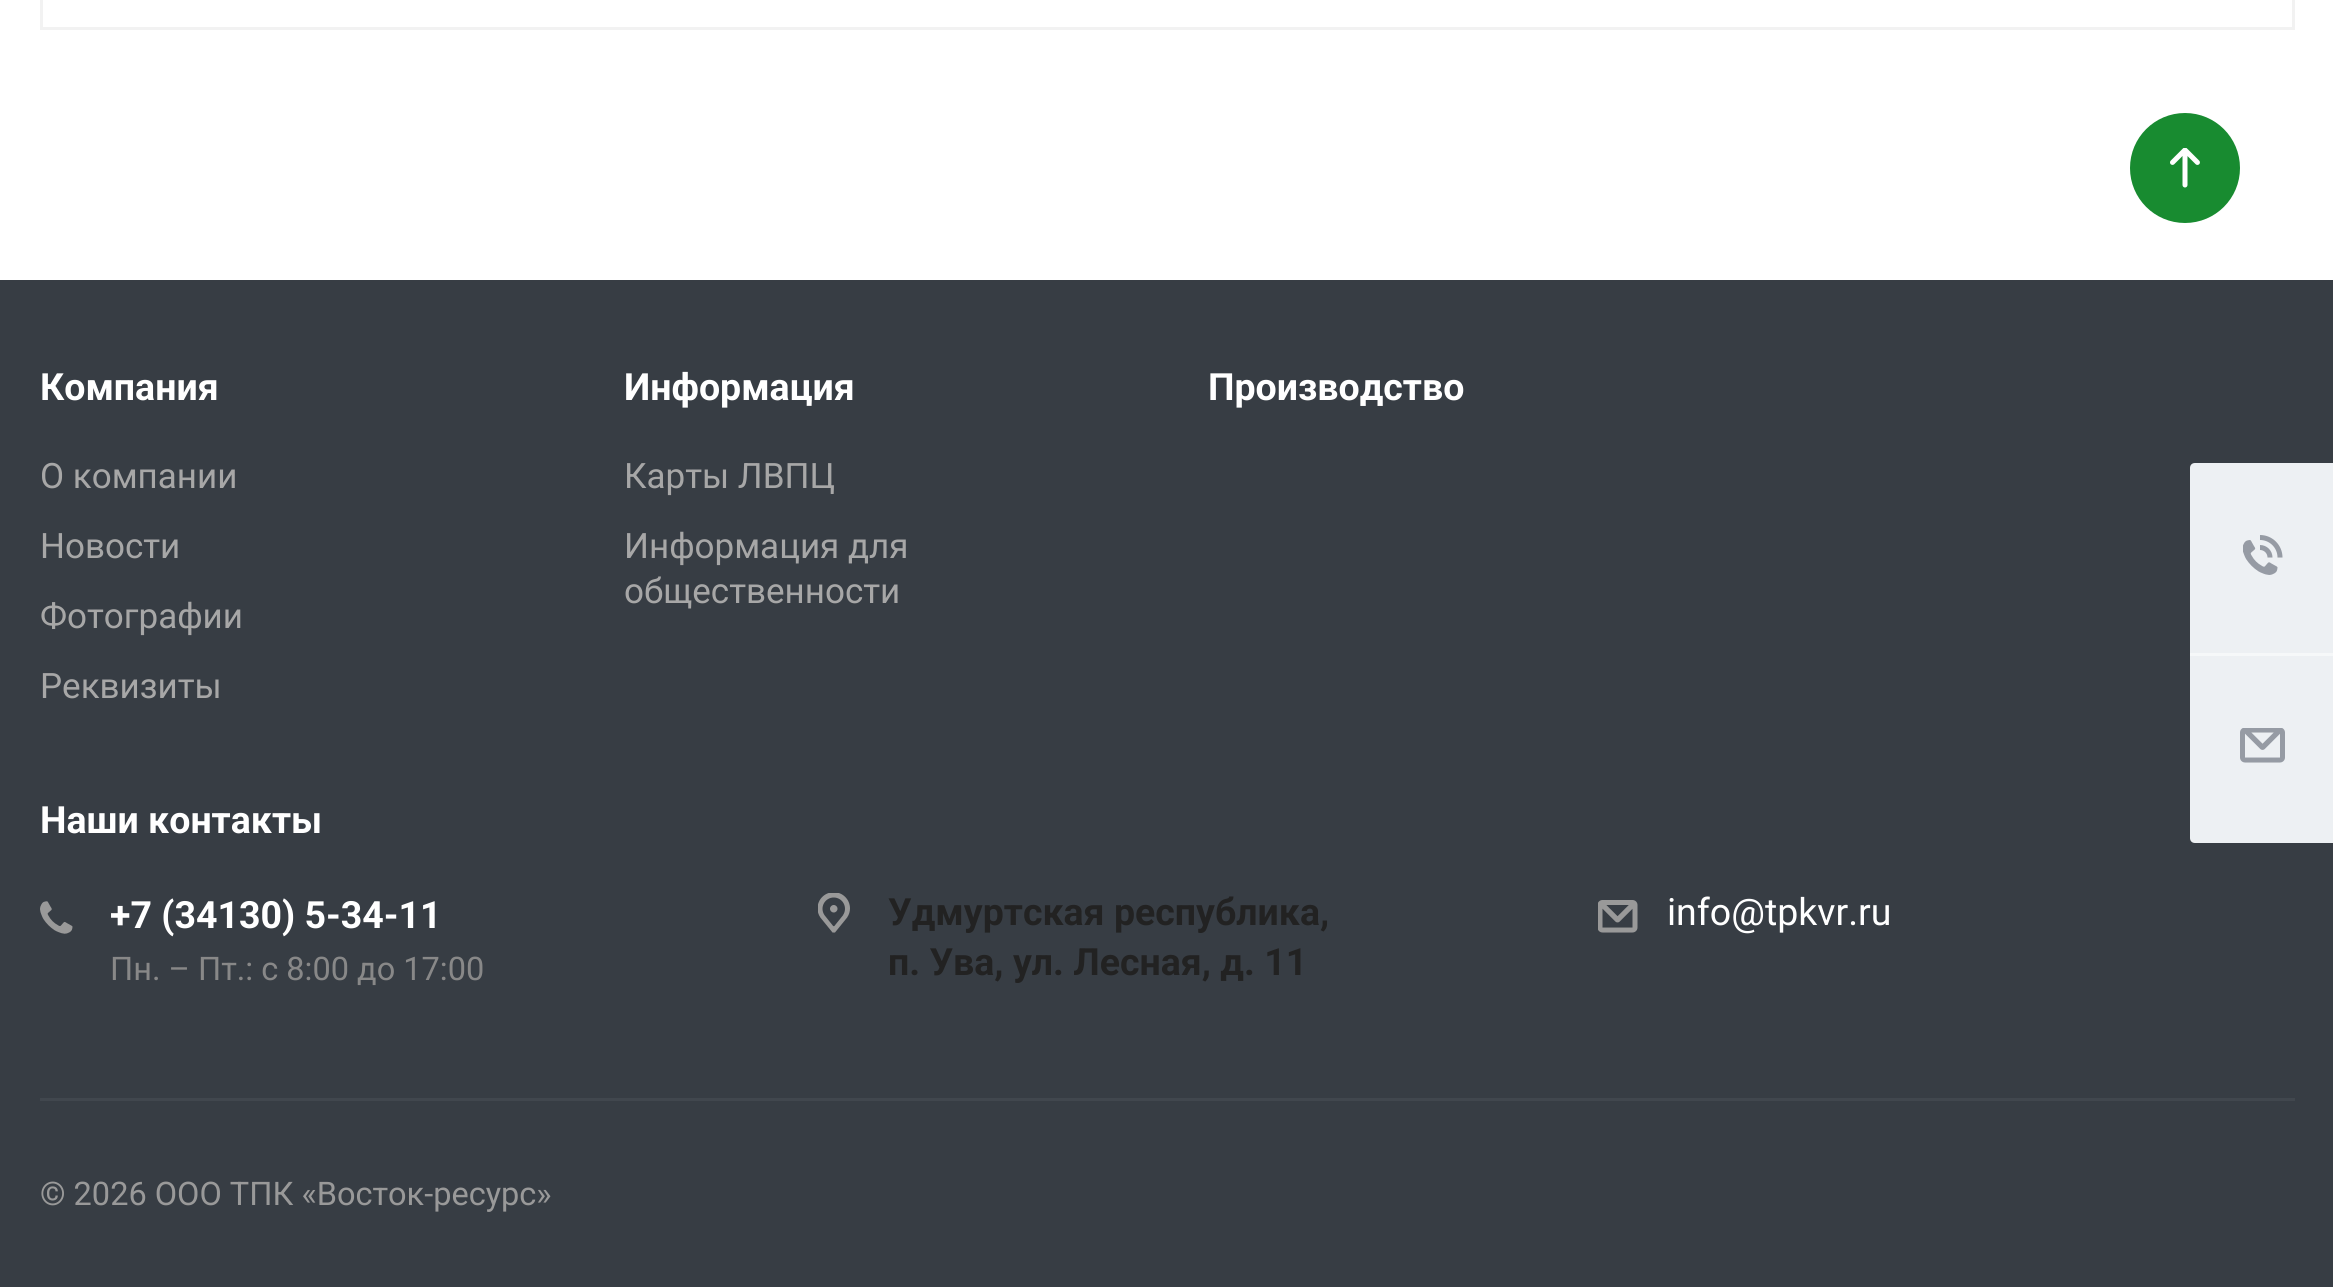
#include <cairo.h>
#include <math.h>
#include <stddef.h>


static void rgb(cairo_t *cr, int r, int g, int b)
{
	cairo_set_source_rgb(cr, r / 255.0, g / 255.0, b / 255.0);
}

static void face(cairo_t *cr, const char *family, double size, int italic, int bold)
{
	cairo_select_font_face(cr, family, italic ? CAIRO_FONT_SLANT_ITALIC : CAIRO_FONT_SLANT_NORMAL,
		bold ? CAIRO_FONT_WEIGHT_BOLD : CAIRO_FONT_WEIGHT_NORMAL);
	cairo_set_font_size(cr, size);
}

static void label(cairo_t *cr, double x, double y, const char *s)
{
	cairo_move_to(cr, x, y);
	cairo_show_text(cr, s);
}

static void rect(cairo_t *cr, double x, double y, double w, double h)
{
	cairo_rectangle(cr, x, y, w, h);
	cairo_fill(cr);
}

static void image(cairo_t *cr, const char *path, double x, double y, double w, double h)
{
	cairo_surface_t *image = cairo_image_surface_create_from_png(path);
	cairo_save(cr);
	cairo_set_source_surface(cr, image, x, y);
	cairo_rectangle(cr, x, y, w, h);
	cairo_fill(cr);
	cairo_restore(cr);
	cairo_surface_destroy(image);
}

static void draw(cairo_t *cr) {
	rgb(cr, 255, 255, 255);
	cairo_paint(cr);
	cairo_rectangle(cr, 41.5, -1.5, 2252, 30);
	rgb(cr, 242, 242, 242);
	cairo_set_line_width(cr, 3);
	cairo_stroke(cr);
	rgb(cr, 24, 139, 48);
	cairo_arc(cr, 2185, 168, 55, 0, 2 * M_PI);
	cairo_fill(cr);
	image(cr, "image0.png", 2170, 148, 30, 40);
	rgb(cr, 55, 61, 68);
	rect(cr, 0, 280, 2333, 1007);
	face(cr, "Roboto", 37.5, 0, 1);
	rgb(cr, 255, 255, 255);
	label(cr, 40, 400, "Компания");
	face(cr, "Roboto", 35, 0, 0);
	rgb(cr, 167, 167, 167);
	label(cr, 40, 488, "О компании");
	label(cr, 40, 558, "Новости");
	label(cr, 40, 628, "Фотографии");
	label(cr, 40, 698, "Реквизиты");
	face(cr, "Roboto", 37.5, 0, 1);
	rgb(cr, 255, 255, 255);
	label(cr, 624, 400, "Информация");
	face(cr, "Roboto", 35, 0, 0);
	rgb(cr, 167, 167, 167);
	label(cr, 624, 488, "Карты ЛВПЦ");
	label(cr, 624, 558, "Информация для");
	label(cr, 624, 603, "общественности");
	face(cr, "Roboto", 37.5, 0, 1);
	rgb(cr, 255, 255, 255);
	label(cr, 1208, 400, "Производство");
	label(cr, 40, 833, "Наши контакты");
	image(cr, "image1.png", 40, 901, 33, 33);
	label(cr, 110, 928, "+7 (34130) 5-34-11");
	face(cr, "Roboto", 32.5, 0, 0);
	rgb(cr, 136, 136, 136);
	label(cr, 110, 980, "Пн. – Пт.: с 8:00 до 17:00");
	image(cr, "image2.png", 818, 893, 32, 40);
	face(cr, "Roboto", 37.5, 0, 1);
	rgb(cr, 34, 34, 34);
	label(cr, 888, 925, "Удмуртская республика,");
	label(cr, 888, 975, "п. Ува, ул. Лесная, д. 11");
	image(cr, "image3.png", 1598, 900, 40, 33);
	face(cr, "Roboto", 37.5, 0, 0);
	rgb(cr, 255, 255, 255);
	label(cr, 1667, 925, "info@tpkvr.ru");
	rgb(cr, 65, 71, 78);
	rect(cr, 40, 1098, 2255, 3);
	face(cr, "Roboto", 32.5, 0, 0);
	rgb(cr, 153, 153, 153);
	label(cr, 40, 1205, "© 2026 ООО ТПК «Восток-ресурс»");
	rgb(cr, 237, 240, 243);
	cairo_new_path(cr);
	cairo_move_to(cr, 2195, 463);
	cairo_line_to(cr, 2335, 463);
	cairo_line_to(cr, 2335, 653);
	cairo_line_to(cr, 2190, 653);
	cairo_line_to(cr, 2190, 468);
	cairo_curve_to(cr, 2190, 465, 2192, 463, 2195, 463);
	cairo_close_path(cr);
	cairo_fill(cr);
	image(cr, "image4.png", 2243, 535, 40, 40);
	cairo_new_path(cr);
	cairo_move_to(cr, 2190, 653);
	cairo_line_to(cr, 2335, 653);
	cairo_line_to(cr, 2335, 843);
	cairo_line_to(cr, 2195, 843);
	cairo_curve_to(cr, 2192, 843, 2190, 841, 2190, 838);
	cairo_close_path(cr);
	cairo_fill(cr);
	rgb(cr, 246, 248, 249);
	rect(cr, 2190, 653, 143, 3);
	image(cr, "image5.png", 2240, 728, 45, 35);
}

int main(void) {
	cairo_surface_t *surface = cairo_image_surface_create(CAIRO_FORMAT_RGB24, 2333, 1287);
	cairo_t *cr = cairo_create(surface);
	cairo_font_options_t *options = cairo_font_options_create();
	cairo_font_options_set_hint_metrics(options, CAIRO_HINT_METRICS_OFF);
	cairo_font_options_set_hint_style(options, CAIRO_HINT_STYLE_NONE);
	cairo_set_font_options(cr, options);
	cairo_set_miter_limit(cr, 4);
	draw(cr);
	cairo_surface_write_to_png(surface, "render.png");
	cairo_font_options_destroy(options);
	cairo_destroy(cr);
	cairo_surface_destroy(surface);
	return 0;
}
